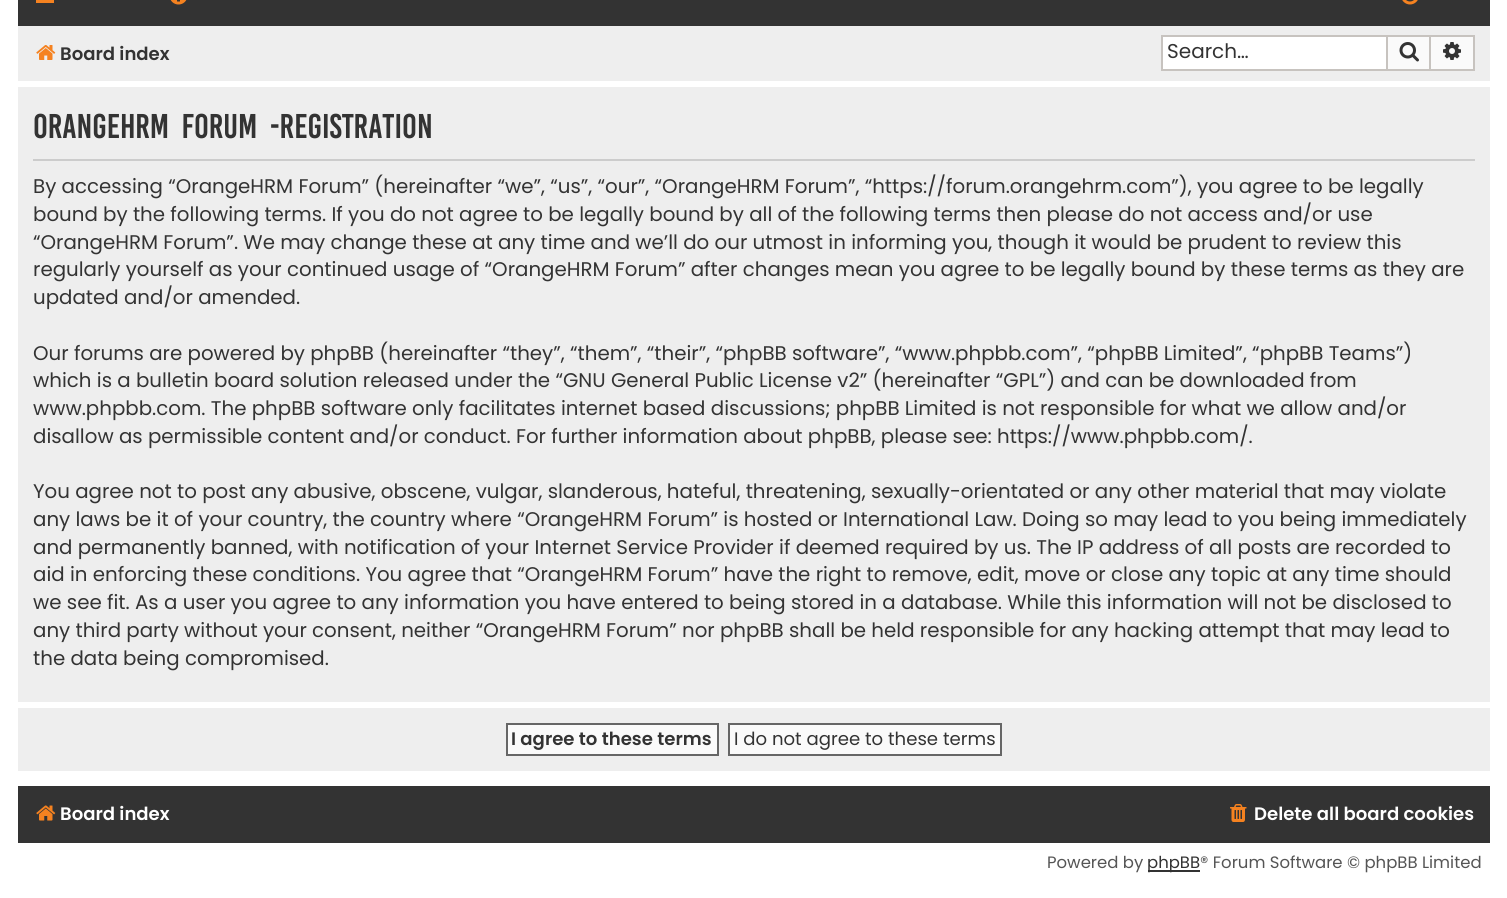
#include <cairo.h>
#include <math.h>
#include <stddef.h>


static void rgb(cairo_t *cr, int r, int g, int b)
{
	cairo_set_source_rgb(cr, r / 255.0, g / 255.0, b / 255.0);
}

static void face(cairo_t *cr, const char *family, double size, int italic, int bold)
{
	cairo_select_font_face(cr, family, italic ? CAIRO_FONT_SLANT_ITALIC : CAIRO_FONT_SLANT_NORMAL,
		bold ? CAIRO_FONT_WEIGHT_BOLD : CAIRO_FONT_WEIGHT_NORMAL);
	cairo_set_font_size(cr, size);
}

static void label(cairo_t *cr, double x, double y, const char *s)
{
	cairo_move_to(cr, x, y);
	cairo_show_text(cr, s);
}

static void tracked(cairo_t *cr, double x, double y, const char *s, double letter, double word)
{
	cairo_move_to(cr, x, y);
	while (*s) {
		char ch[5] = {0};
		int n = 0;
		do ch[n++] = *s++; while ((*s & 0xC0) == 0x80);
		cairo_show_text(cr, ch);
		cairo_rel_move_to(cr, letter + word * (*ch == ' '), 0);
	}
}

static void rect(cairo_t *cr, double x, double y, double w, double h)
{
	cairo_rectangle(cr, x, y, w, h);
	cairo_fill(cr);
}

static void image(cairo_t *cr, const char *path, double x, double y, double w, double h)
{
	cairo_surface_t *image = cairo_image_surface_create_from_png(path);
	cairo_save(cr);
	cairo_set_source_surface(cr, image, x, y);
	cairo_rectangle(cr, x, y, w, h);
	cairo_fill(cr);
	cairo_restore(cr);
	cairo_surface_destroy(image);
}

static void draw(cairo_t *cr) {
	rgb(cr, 255, 255, 255);
	cairo_paint(cr);
	rgb(cr, 51, 51, 51);
	rect(cr, 18, 0, 1472, 26);
	rgb(cr, 245, 130, 32);
	rect(cr, 36, 0, 18, 3);
	image(cr, "image0.png", 170, 0, 17, 5);
	image(cr, "image1.png", 1402, 0, 16, 5);
	rgb(cr, 238, 238, 238);
	rect(cr, 18, 26, 1472, 55);
	image(cr, "image2.png", 36, 45, 20, 15);
	face(cr, "Poppins SemiBold", 18.1, 0, 0);
	rgb(cr, 51, 51, 51);
	label(cr, 60, 60, "Board index");
	rgb(cr, 255, 255, 255);
	rect(cr, 1163, 37, 223, 32);
	rgb(cr, 199, 195, 191);
	rect(cr, 1161, 35, 225, 2);
	rect(cr, 1161, 69, 225, 2);
	rect(cr, 1161, 35, 2, 36);
	face(cr, "Poppins", 20, 0, 0);
	rgb(cr, 51, 51, 51);
	label(cr, 1167, 58, "Search…");
	rgb(cr, 250, 250, 250);
	cairo_rectangle(cr, 1387, 36, 43, 34);
	cairo_fill_preserve(cr);
	rgb(cr, 199, 195, 191);
	cairo_stroke(cr);
	image(cr, "image3.png", 1399, 42, 20, 20);
	rgb(cr, 250, 250, 250);
	rect(cr, 1431, 37, 42, 32);
	rgb(cr, 199, 195, 191);
	rect(cr, 1431, 35, 44, 2);
	rect(cr, 1473, 35, 2, 36);
	rect(cr, 1431, 69, 44, 2);
	image(cr, "image4.png", 1443, 42, 18, 18);
	rgb(cr, 238, 238, 238);
	rect(cr, 18, 87, 1472, 615);
	rgb(cr, 204, 204, 204);
	rect(cr, 33, 159, 1442, 2);
	face(cr, "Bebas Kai", 26.4, 0, 0);
	rgb(cr, 51, 51, 51);
	tracked(cr, 33, 138, "OrangeHRM Forum -Registration", 0, 6);
	face(cr, "Poppins", 19.8, 0, 0);
	label(cr, 33, 193, "By accessing “OrangeHRM Forum” (hereinafter “we”, “us”, “our”, “OrangeHRM Forum”, “https://forum.orangehrm.com”), you agree to be legally");
	label(cr, 33, 221, "bound by the following terms. If you do not agree to be legally bound by all of the following terms then please do not access and/or use");
	label(cr, 33, 249, "“OrangeHRM Forum”. We may change these at any time and we’ll do our utmost in informing you, though it would be prudent to review this");
	label(cr, 33, 276, "regularly yourself as your continued usage of “OrangeHRM Forum” after changes mean you agree to be legally bound by these terms as they are");
	label(cr, 33, 304, "updated and/or amended.");
	label(cr, 33, 360, "Our forums are powered by phpBB (hereinafter “they”, “them”, “their”, “phpBB software”, “www.phpbb.com”, “phpBB Limited”, “phpBB Teams”)");
	label(cr, 33, 387, "which is a bulletin board solution released under the “GNU General Public License v2” (hereinafter “GPL”) and can be downloaded from");
	label(cr, 33, 415, "www.phpbb.com. The phpBB software only facilitates internet based discussions; phpBB Limited is not responsible for what we allow and/or");
	label(cr, 33, 443, "disallow as permissible content and/or conduct. For further information about phpBB, please see: https://www.phpbb.com/.");
	label(cr, 33, 498, "You agree not to post any abusive, obscene, vulgar, slanderous, hateful, threatening, sexually-orientated or any other material that may violate");
	label(cr, 33, 526, "any laws be it of your country, the country where “OrangeHRM Forum” is hosted or International Law. Doing so may lead to you being immediately");
	label(cr, 33, 554, "and permanently banned, with notification of your Internet Service Provider if deemed required by us. The IP address of all posts are recorded to");
	label(cr, 33, 581, "aid in enforcing these conditions. You agree that “OrangeHRM Forum” have the right to remove, edit, move or close any topic at any time should");
	label(cr, 33, 609, "we see fit. As a user you agree to any information you have entered to being stored in a database. While this information will not be disclosed to");
	label(cr, 33, 637, "any third party without your consent, neither “OrangeHRM Forum” nor phpBB shall be held responsible for any hacking attempt that may lead to");
	label(cr, 33, 665, "the data being compromised.");
	rgb(cr, 238, 238, 238);
	rect(cr, 18, 708, 1472, 63);
	rgb(cr, 250, 250, 250);
	cairo_rectangle(cr, 507, 724, 211, 31);
	cairo_fill_preserve(cr);
	rgb(cr, 102, 102, 102);
	cairo_stroke(cr);
	face(cr, "Poppins SemiBold", 18.1, 0, 0);
	rgb(cr, 51, 51, 51);
	label(cr, 511, 745, "I agree to these terms");
	rgb(cr, 250, 250, 250);
	cairo_rectangle(cr, 729, 724, 272, 31);
	cairo_fill_preserve(cr);
	rgb(cr, 102, 102, 102);
	cairo_stroke(cr);
	face(cr, "Poppins", 18.1, 0, 0);
	rgb(cr, 51, 51, 51);
	label(cr, 734, 745, "I do not agree to these terms");
	rect(cr, 18, 786, 1472, 57);
	image(cr, "image5.png", 36, 805, 20, 16);
	face(cr, "Poppins SemiBold", 18.1, 0, 0);
	rgb(cr, 255, 255, 255);
	label(cr, 60, 820, "Board index");
	image(cr, "image6.png", 1230, 804, 17, 18);
	label(cr, 1254, 820, "Delete all board cookies");
	face(cr, "Poppins", 16.5, 0, 0);
	rgb(cr, 85, 85, 85);
	label(cr, 1047, 868, "Powered by");
	rgb(cr, 51, 51, 51);
	rect(cr, 1148, 870, 52, 2);
	label(cr, 1147, 868, "phpBB");
	rgb(cr, 85, 85, 85);
	label(cr, 1200, 868, "® Forum Software © phpBB Limited");
}

int main(void) {
	cairo_surface_t *surface = cairo_image_surface_create(CAIRO_FORMAT_RGB24, 1507, 898);
	cairo_t *cr = cairo_create(surface);
	cairo_font_options_t *options = cairo_font_options_create();
	cairo_font_options_set_hint_metrics(options, CAIRO_HINT_METRICS_OFF);
	cairo_font_options_set_hint_style(options, CAIRO_HINT_STYLE_NONE);
	cairo_set_font_options(cr, options);
	cairo_set_miter_limit(cr, 4);
	draw(cr);
	cairo_surface_write_to_png(surface, "render.png");
	cairo_font_options_destroy(options);
	cairo_destroy(cr);
	cairo_surface_destroy(surface);
	return 0;
}
